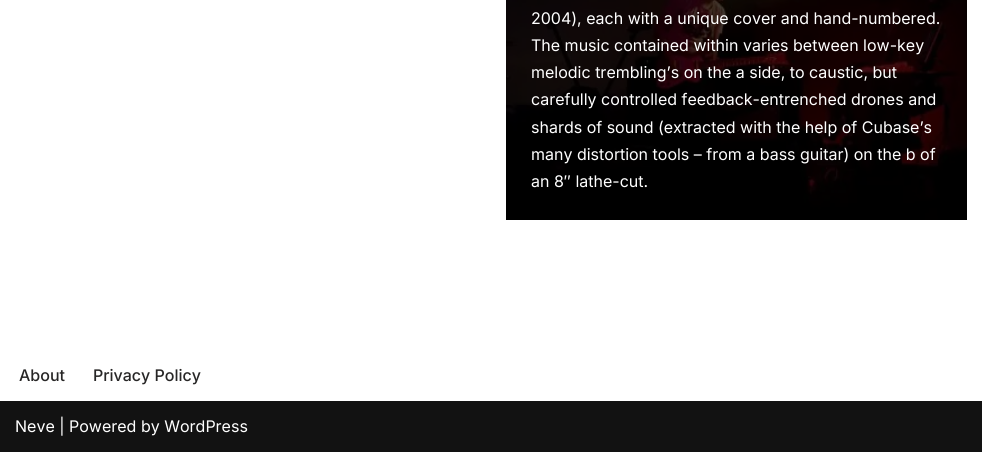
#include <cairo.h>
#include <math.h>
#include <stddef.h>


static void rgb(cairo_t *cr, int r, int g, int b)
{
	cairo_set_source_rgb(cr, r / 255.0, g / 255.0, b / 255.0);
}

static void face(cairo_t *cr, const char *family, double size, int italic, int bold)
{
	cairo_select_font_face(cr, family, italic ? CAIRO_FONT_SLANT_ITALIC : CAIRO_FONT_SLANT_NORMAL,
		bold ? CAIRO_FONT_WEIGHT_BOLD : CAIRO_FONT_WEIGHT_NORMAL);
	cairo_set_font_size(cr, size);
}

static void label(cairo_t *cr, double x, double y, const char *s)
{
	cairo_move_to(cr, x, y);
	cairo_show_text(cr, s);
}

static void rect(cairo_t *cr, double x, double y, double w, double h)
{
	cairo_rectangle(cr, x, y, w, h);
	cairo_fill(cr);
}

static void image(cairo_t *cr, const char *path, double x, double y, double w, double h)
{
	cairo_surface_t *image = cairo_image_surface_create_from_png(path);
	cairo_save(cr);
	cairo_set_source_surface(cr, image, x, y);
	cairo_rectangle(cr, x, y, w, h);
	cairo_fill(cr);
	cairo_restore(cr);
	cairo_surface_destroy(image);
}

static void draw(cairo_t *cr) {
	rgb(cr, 255, 255, 255);
	cairo_paint(cr);
	image(cr, "image0.png", 506, 0, 461, 220);
	face(cr, "Inter", 16, 0, 0);
	rgb(cr, 255, 255, 255);
	label(cr, 531, 24, "2004), each with a unique cover and hand-numbered.");
	label(cr, 531, 51, "The music contained within varies between low-key");
	label(cr, 531, 78, "melodic trembling’s on the a side, to caustic, but");
	label(cr, 531, 105, "carefully controlled feedback-entrenched drones and");
	label(cr, 531, 133, "shards of sound (extracted with the help of Cubase’s");
	label(cr, 531, 160, "many distortion tools – from a bass guitar) on the b of");
	label(cr, 531, 187, "an 8″ lathe-cut.");
	face(cr, "Inter Medium", 16, 0, 0);
	rgb(cr, 39, 38, 38);
	label(cr, 19, 381, "About");
	label(cr, 93, 381, "Privacy Policy");
	rgb(cr, 18, 18, 18);
	rect(cr, 0, 401, 982, 51);
	face(cr, "Inter", 16, 0, 0);
	rgb(cr, 255, 255, 255);
	label(cr, 15, 432, "Neve | Powered by WordPress");
}

int main(void) {
	cairo_surface_t *surface = cairo_image_surface_create(CAIRO_FORMAT_RGB24, 982, 452);
	cairo_t *cr = cairo_create(surface);
	cairo_font_options_t *options = cairo_font_options_create();
	cairo_font_options_set_hint_metrics(options, CAIRO_HINT_METRICS_OFF);
	cairo_font_options_set_hint_style(options, CAIRO_HINT_STYLE_NONE);
	cairo_set_font_options(cr, options);
	cairo_set_miter_limit(cr, 4);
	draw(cr);
	cairo_surface_write_to_png(surface, "render.png");
	cairo_font_options_destroy(options);
	cairo_destroy(cr);
	cairo_surface_destroy(surface);
	return 0;
}
